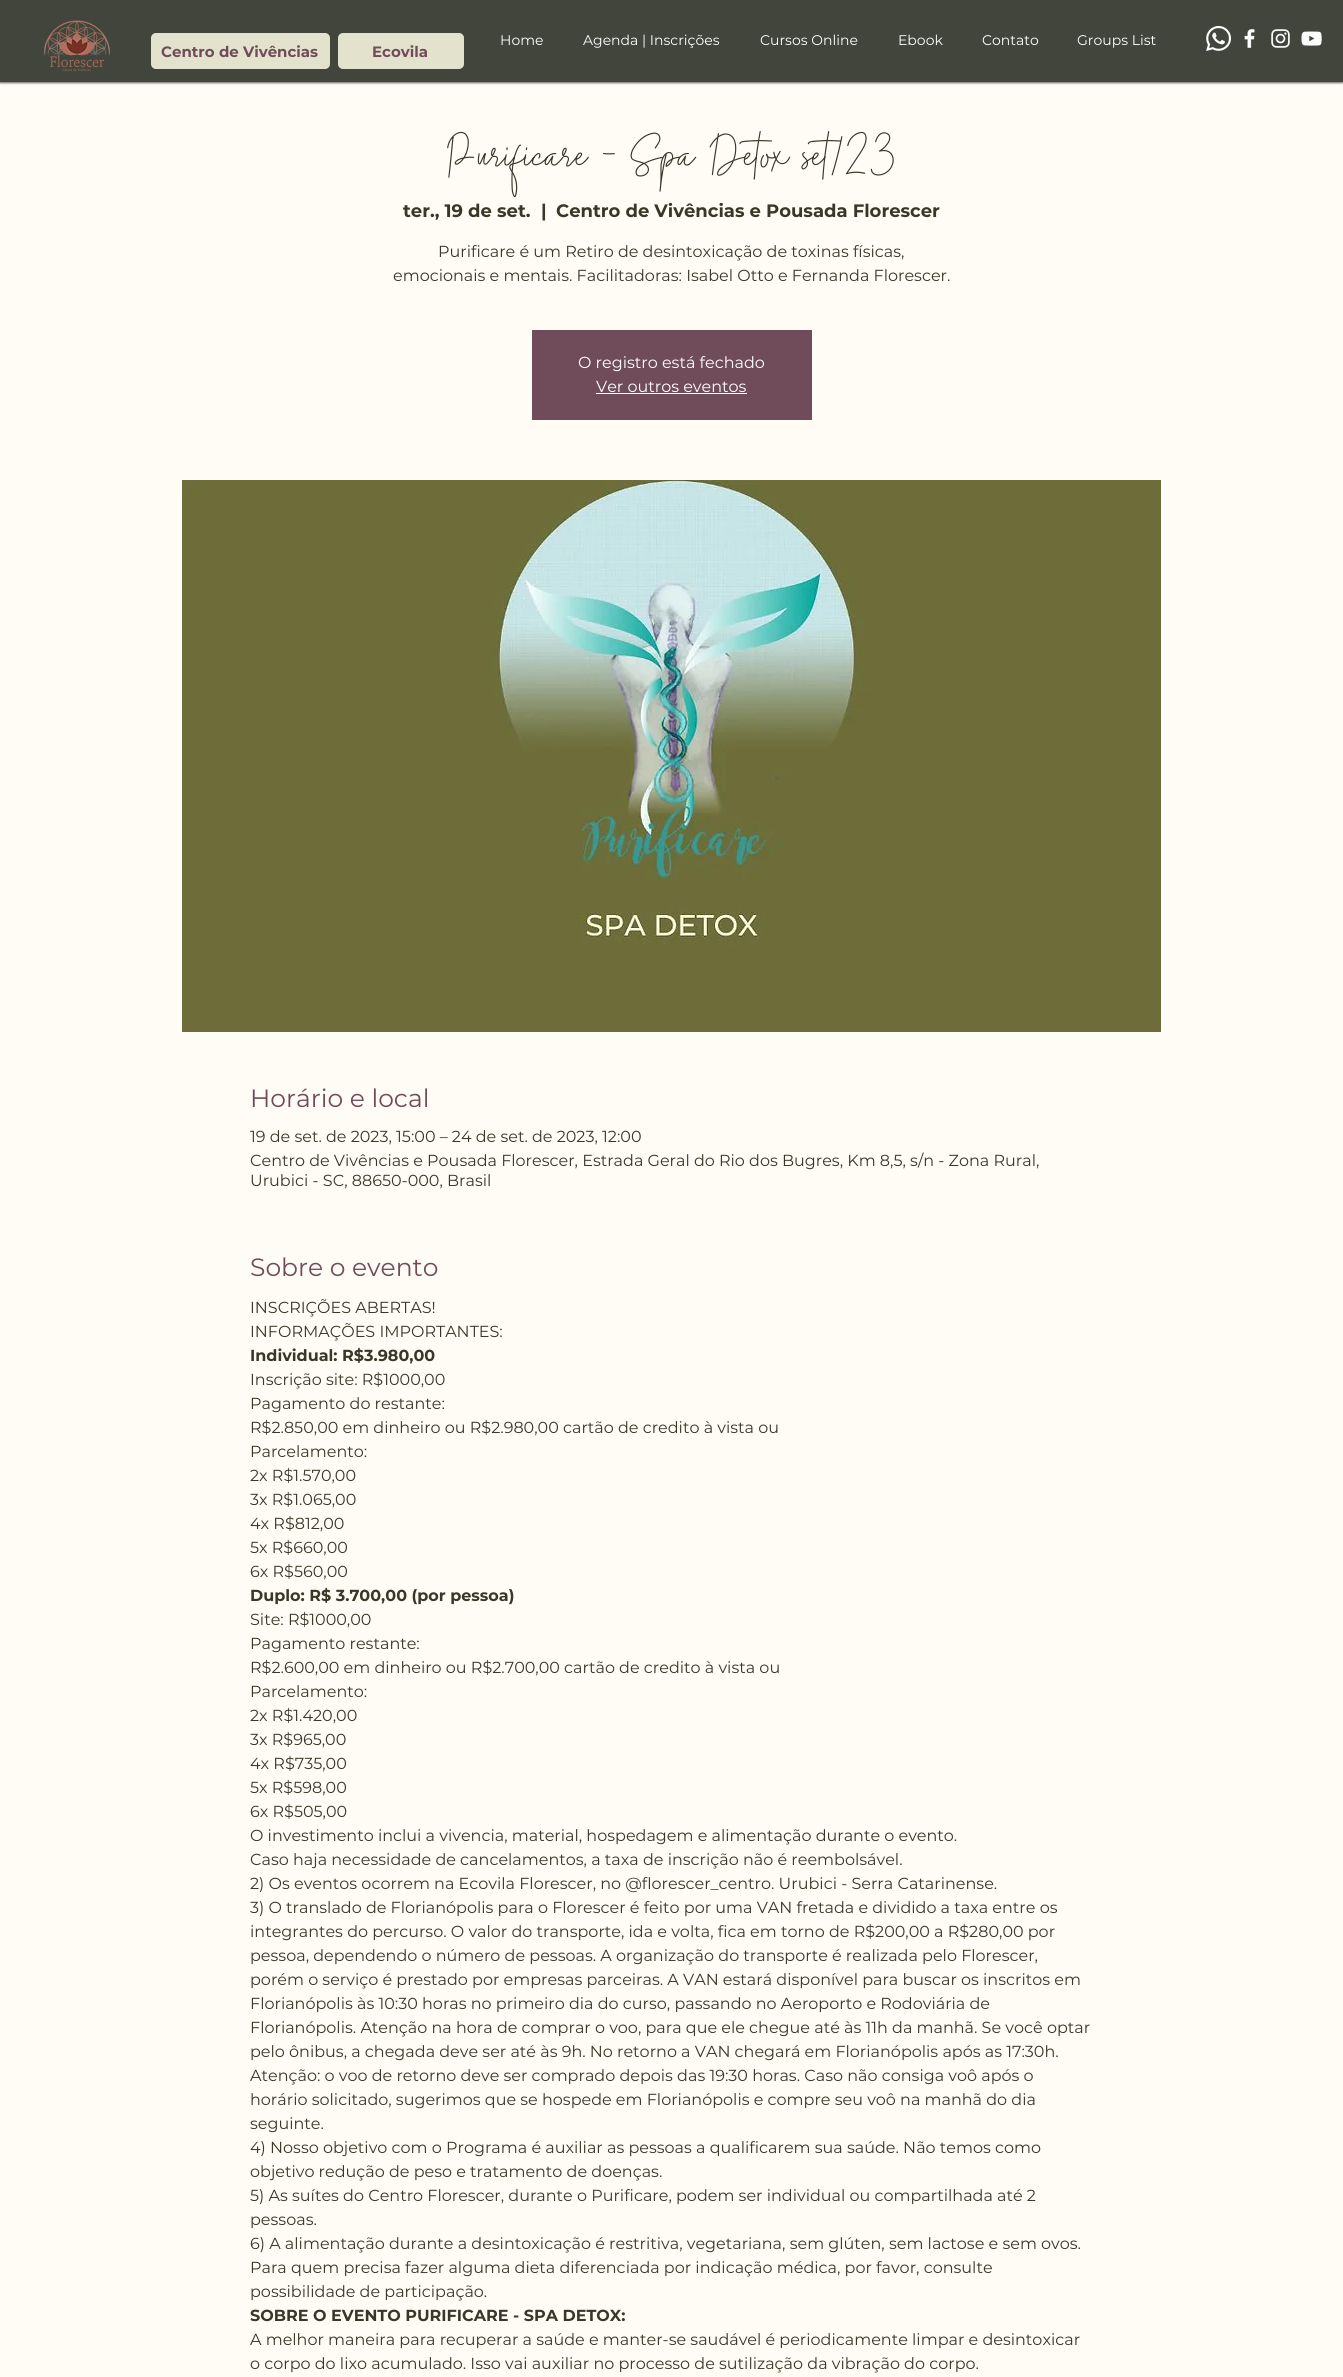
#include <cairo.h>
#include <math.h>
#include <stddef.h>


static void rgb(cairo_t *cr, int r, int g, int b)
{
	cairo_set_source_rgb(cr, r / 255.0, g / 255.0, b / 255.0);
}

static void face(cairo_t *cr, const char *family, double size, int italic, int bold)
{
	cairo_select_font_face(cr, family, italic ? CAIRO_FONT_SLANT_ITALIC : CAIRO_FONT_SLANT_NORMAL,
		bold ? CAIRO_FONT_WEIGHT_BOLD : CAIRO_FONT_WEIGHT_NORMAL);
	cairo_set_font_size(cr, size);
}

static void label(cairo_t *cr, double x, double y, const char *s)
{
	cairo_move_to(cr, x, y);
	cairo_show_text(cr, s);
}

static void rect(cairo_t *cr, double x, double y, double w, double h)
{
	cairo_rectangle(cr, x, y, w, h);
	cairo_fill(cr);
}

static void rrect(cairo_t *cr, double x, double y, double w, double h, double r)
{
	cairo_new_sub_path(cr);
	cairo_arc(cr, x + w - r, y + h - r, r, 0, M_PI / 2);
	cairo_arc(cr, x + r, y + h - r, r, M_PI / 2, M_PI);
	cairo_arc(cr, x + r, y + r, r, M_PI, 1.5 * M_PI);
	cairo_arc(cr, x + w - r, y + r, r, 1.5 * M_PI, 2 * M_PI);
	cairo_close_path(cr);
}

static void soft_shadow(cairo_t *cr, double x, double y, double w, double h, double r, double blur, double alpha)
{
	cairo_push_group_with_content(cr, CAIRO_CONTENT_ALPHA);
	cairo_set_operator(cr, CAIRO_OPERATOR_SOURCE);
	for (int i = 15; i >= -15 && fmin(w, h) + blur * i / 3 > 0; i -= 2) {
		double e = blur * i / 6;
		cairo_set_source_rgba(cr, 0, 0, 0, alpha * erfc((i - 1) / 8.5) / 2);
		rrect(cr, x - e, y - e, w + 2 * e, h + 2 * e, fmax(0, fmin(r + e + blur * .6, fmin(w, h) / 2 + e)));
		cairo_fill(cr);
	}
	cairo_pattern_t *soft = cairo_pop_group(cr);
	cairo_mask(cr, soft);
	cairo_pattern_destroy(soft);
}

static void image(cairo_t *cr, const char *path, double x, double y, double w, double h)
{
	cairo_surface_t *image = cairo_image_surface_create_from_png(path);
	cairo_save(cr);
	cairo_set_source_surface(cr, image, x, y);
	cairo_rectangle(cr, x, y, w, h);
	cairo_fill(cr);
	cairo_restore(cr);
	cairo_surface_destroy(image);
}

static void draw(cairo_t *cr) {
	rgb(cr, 255, 252, 245);
	cairo_paint(cr);
	rgb(cr, 0, 0, 0);
	soft_shadow(cr, 0, 1, 1343, 82, 0, 1, 0.6);
	rgb(cr, 65, 69, 59);
	rect(cr, 0, 0, 1343, 82);
	image(cr, "image0.png", 43, 20, 67, 52);
	face(cr, "Montserrat", 14, 0, 0);
	rgb(cr, 255, 255, 255);
	label(cr, 500, 45, "Home");
	label(cr, 583, 45, "Agenda | Inscrições");
	label(cr, 760, 45, "Cursos Online");
	label(cr, 898, 45, "Ebook");
	label(cr, 982, 45, "Contato");
	label(cr, 1077, 45, "Groups List");
	image(cr, "image1.png", 1206, 26, 25, 25);
	image(cr, "image2.png", 1244, 29, 11, 19);
	image(cr, "image3.png", 1271, 29, 19, 19);
	image(cr, "image4.png", 1301, 31, 21, 15);
	rgb(cr, 226, 226, 205);
	rrect(cr, 151, 33, 179, 36, 5);
	cairo_fill(cr);
	face(cr, "Montserrat", 15, 0, 1);
	rgb(cr, 112, 76, 91);
	label(cr, 161, 57, "Centro de Vivências");
	rgb(cr, 226, 226, 205);
	rrect(cr, 338, 33, 126, 36, 5);
	cairo_fill(cr);
	rgb(cr, 112, 76, 91);
	label(cr, 372, 57, "Ecovila");
	face(cr, "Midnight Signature", 40, 0, 0);
	rgb(cr, 56, 56, 41);
	label(cr, 447, 177, "Purificare - Spa Detox set/23");
	face(cr, "Montserrat", 18, 0, 1);
	label(cr, 403, 217, "ter., 19 de set.");
	label(cr, 541, 217, "|");
	label(cr, 556, 217, "Centro de Vivências e Pousada Florescer");
	face(cr, "Montserrat", 16, 0, 0);
	label(cr, 438, 257, "Purificare é um Retiro de desintoxicação de toxinas físicas,");
	label(cr, 393, 281, "emocionais e mentais. Facilitadoras: Isabel Otto e Fernanda Florescer.");
	rgb(cr, 112, 76, 91);
	rect(cr, 532, 330, 280, 90);
	rgb(cr, 255, 255, 255);
	label(cr, 578, 368, "O registro está fechado");
	label(cr, 596, 392, "Ver outros eventos");
	rect(cr, 596, 393, 151, 1);
	image(cr, "image5.png", 182, 480, 979, 552);
	face(cr, "Montserrat", 25, 0, 0);
	rgb(cr, 112, 76, 91);
	label(cr, 250, 1107, "Horário e local");
	face(cr, "Montserrat", 16, 0, 0);
	rgb(cr, 56, 56, 41);
	label(cr, 250, 1142, "19 de set. de 2023, 15:00 – 24 de set. de 2023, 12:00");
	label(cr, 250, 1166, "Centro de Vivências e Pousada Florescer, Estrada Geral do Rio dos Bugres, Km 8,5, s/n - Zona Rural,");
	label(cr, 250, 1186, "Urubici - SC, 88650-000, Brasil");
	face(cr, "Montserrat", 25, 0, 0);
	rgb(cr, 112, 76, 91);
	label(cr, 250, 1276, "Sobre o evento");
	face(cr, "Montserrat", 16, 0, 0);
	rgb(cr, 56, 56, 41);
	label(cr, 250, 1313, "INSCRIÇÕES ABERTAS!");
	label(cr, 250, 1337, "INFORMAÇÕES IMPORTANTES:");
	face(cr, "Montserrat", 16, 0, 1);
	label(cr, 250, 1361, "Individual: R$3.980,00");
	face(cr, "Montserrat", 16, 0, 0);
	label(cr, 250, 1385, "Inscrição site: R$1000,00");
	label(cr, 250, 1409, "Pagamento do restante:");
	label(cr, 250, 1433, "R$2.850,00 em dinheiro ou R$2.980,00 cartão de credito à vista ou");
	label(cr, 250, 1457, "Parcelamento:");
	label(cr, 250, 1481, "2x R$1.570,00");
	label(cr, 250, 1505, "3x R$1.065,00");
	label(cr, 250, 1529, "4x R$812,00");
	label(cr, 250, 1553, "5x R$660,00");
	label(cr, 250, 1577, "6x R$560,00");
	face(cr, "Montserrat", 16, 0, 1);
	label(cr, 250, 1601, "Duplo: R$ 3.700,00 (por pessoa)");
	face(cr, "Montserrat", 16, 0, 0);
	label(cr, 250, 1625, "Site: R$1000,00");
	label(cr, 250, 1649, "Pagamento restante:");
	label(cr, 250, 1673, "R$2.600,00 em dinheiro ou R$2.700,00 cartão de credito à vista ou");
	label(cr, 250, 1697, "Parcelamento:");
	label(cr, 250, 1721, "2x R$1.420,00");
	label(cr, 250, 1745, "3x R$965,00");
	label(cr, 250, 1769, "4x R$735,00");
	label(cr, 250, 1793, "5x R$598,00");
	label(cr, 250, 1817, "6x R$505,00");
	label(cr, 250, 1841, "O investimento inclui a vivencia, material, hospedagem e alimentação durante o evento.");
	label(cr, 250, 1865, "Caso haja necessidade de cancelamentos, a taxa de inscrição não é reembolsável.");
	label(cr, 250, 1889, "2) Os eventos ocorrem na Ecovila Florescer, no @florescer_centro. Urubici - Serra Catarinense.");
	label(cr, 250, 1913, "3) O translado de Florianópolis para o Florescer é feito por uma VAN fretada e dividido a taxa entre os");
	label(cr, 250, 1937, "integrantes do percurso. O valor do transporte, ida e volta, fica em torno de R$200,00 a R$280,00 por");
	label(cr, 250, 1961, "pessoa, dependendo o número de pessoas. A organização do transporte é realizada pelo Florescer,");
	label(cr, 250, 1985, "porém o serviço é prestado por empresas parceiras. A VAN estará disponível para buscar os inscritos em");
	label(cr, 250, 2009, "Florianópolis às 10:30 horas no primeiro dia do curso, passando no Aeroporto e Rodoviária de");
	label(cr, 250, 2033, "Florianópolis. Atenção na hora de comprar o voo, para que ele chegue até às 11h da manhã. Se você optar");
	label(cr, 250, 2057, "pelo ônibus, a chegada deve ser até às 9h. No retorno a VAN chegará em Florianópolis após as 17:30h.");
	label(cr, 250, 2081, "Atenção: o voo de retorno deve ser comprado depois das 19:30 horas. Caso não consiga voô após o");
	label(cr, 250, 2105, "horário solicitado, sugerimos que se hospede em Florianópolis e compre seu voô na manhã do dia");
	label(cr, 250, 2129, "seguinte.");
	label(cr, 250, 2153, "4) Nosso objetivo com o Programa é auxiliar as pessoas a qualificarem sua saúde. Não temos como");
	label(cr, 250, 2177, "objetivo redução de peso e tratamento de doenças.");
	label(cr, 250, 2201, "5) As suítes do Centro Florescer, durante o Purificare, podem ser individual ou compartilhada até 2");
	label(cr, 250, 2225, "pessoas.");
	label(cr, 250, 2249, "6) A alimentação durante a desintoxicação é restritiva, vegetariana, sem glúten, sem lactose e sem ovos.");
	label(cr, 250, 2273, "Para quem precisa fazer alguma dieta diferenciada por indicação médica, por favor, consulte");
	label(cr, 250, 2297, "possibilidade de participação.");
	face(cr, "Montserrat", 16, 0, 1);
	label(cr, 250, 2321, "SOBRE O EVENTO PURIFICARE - SPA DETOX:");
	face(cr, "Montserrat", 16, 0, 0);
	label(cr, 250, 2345, "A melhor maneira para recuperar a saúde e manter-se saudável é periodicamente limpar e desintoxicar");
	label(cr, 250, 2369, "o corpo do lixo acumulado. Isso vai auxiliar no processo de sutilização da vibração do corpo.");
}

int main(void) {
	cairo_surface_t *surface = cairo_image_surface_create(CAIRO_FORMAT_RGB24, 1343, 2377);
	cairo_t *cr = cairo_create(surface);
	cairo_font_options_t *options = cairo_font_options_create();
	cairo_font_options_set_hint_metrics(options, CAIRO_HINT_METRICS_OFF);
	cairo_font_options_set_hint_style(options, CAIRO_HINT_STYLE_NONE);
	cairo_set_font_options(cr, options);
	cairo_set_miter_limit(cr, 4);
	draw(cr);
	cairo_surface_write_to_png(surface, "render.png");
	cairo_font_options_destroy(options);
	cairo_destroy(cr);
	cairo_surface_destroy(surface);
	return 0;
}
